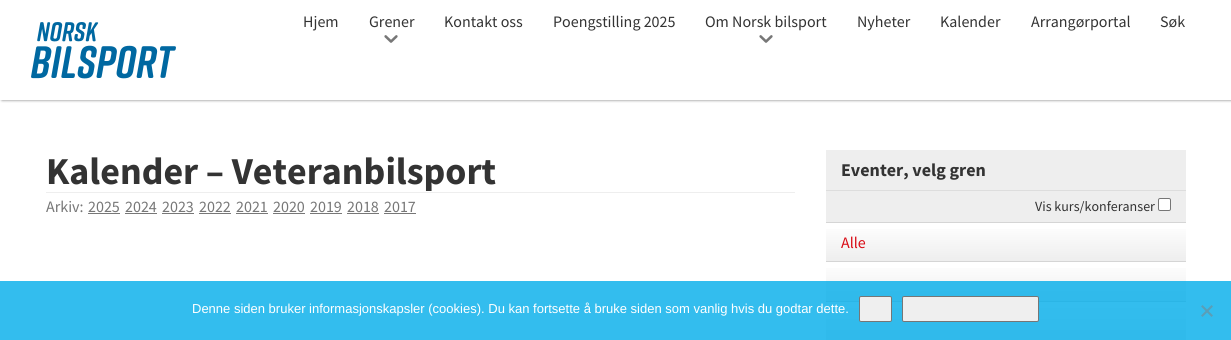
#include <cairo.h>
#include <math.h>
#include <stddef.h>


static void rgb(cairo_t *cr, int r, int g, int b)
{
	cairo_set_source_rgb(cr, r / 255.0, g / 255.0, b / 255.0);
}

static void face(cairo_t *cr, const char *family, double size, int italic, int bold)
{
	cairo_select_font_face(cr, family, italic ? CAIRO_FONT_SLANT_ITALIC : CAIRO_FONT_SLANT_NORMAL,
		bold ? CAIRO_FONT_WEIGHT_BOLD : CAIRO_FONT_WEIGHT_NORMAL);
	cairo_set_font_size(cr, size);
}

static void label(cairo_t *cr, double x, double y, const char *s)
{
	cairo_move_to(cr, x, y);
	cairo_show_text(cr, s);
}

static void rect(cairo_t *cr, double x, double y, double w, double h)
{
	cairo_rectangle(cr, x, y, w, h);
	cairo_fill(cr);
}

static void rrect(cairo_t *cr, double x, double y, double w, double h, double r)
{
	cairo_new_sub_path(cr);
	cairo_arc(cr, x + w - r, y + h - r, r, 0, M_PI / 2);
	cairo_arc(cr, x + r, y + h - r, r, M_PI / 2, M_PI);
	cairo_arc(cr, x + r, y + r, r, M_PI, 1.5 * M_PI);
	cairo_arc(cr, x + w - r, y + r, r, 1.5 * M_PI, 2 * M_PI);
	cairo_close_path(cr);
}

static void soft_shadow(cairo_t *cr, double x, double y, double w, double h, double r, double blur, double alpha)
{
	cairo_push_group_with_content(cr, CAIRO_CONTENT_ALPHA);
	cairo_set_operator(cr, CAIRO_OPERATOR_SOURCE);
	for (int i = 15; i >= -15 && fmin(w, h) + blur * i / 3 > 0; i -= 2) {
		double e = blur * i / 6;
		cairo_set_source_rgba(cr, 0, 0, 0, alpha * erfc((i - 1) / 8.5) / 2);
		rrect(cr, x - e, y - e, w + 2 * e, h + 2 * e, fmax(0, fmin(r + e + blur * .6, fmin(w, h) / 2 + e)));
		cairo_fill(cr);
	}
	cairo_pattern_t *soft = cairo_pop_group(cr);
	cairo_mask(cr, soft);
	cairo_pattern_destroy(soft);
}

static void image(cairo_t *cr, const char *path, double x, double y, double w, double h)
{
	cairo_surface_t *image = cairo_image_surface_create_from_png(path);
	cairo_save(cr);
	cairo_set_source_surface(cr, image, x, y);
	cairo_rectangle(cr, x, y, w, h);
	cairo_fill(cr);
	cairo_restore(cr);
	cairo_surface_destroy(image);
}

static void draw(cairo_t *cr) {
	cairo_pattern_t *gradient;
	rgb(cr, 255, 255, 255);
	cairo_paint(cr);
	cairo_save(cr);
	cairo_rectangle(cr, 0, 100, 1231, 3);
	cairo_clip(cr);
	rgb(cr, 119, 119, 119);
	soft_shadow(cr, 2, 0, 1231, 100, 0, 1.5, 1);
	cairo_restore(cr);
	image(cr, "image0.png", 31, 22, 145, 57);
	face(cr, "Source Sans Pro", 16, 0, 0);
	rgb(cr, 51, 51, 51);
	label(cr, 303, 27, "Hjem");
	label(cr, 369, 27, "Grener");
	image(cr, "image1.png", 384, 35, 14, 8);
	label(cr, 444, 27, "Kontakt oss");
	label(cr, 553, 27, "Poengstilling 2025");
	label(cr, 705, 27, "Om Norsk bilsport");
	image(cr, "image1.png", 759, 35, 14, 8);
	label(cr, 857, 27, "Nyheter");
	label(cr, 940, 27, "Kalender");
	label(cr, 1031, 27, "Arrangørportal");
	label(cr, 1160, 27, "Søk");
	face(cr, "Source Sans Pro", 38, 0, 1);
	label(cr, 46, 184, "Kalender – Veteranbilsport");
	rgb(cr, 238, 238, 238);
	rect(cr, 46, 192, 749, 1);
	face(cr, "Source Sans Pro", 16, 0, 0);
	rgb(cr, 119, 119, 119);
	label(cr, 46, 212, "Arkiv:");
	label(cr, 88, 212, "2025");
	rect(cr, 88, 213, 32, 1);
	label(cr, 125, 212, "2024");
	rect(cr, 125, 213, 32, 1);
	label(cr, 162, 212, "2023");
	rect(cr, 162, 213, 32, 1);
	label(cr, 199, 212, "2022");
	rect(cr, 199, 213, 32, 1);
	label(cr, 236, 212, "2021");
	rect(cr, 236, 213, 32, 1);
	label(cr, 273, 212, "2020");
	rect(cr, 273, 213, 32, 1);
	label(cr, 310, 212, "2019");
	rect(cr, 310, 213, 32, 1);
	label(cr, 347, 212, "2018");
	rect(cr, 347, 213, 32, 1);
	label(cr, 384, 212, "2017");
	rect(cr, 384, 213, 32, 1);
	rgb(cr, 238, 238, 238);
	rect(cr, 826, 150, 360, 72);
	face(cr, "Source Sans Pro", 18, 0, 1);
	rgb(cr, 51, 51, 51);
	label(cr, 841, 176, "Eventer, velg gren");
	rgb(cr, 221, 221, 221);
	rect(cr, 826, 190, 360, 1);
	face(cr, "Source Sans Pro", 14, 0, 0);
	rgb(cr, 51, 51, 51);
	label(cr, 1035, 211, "Vis kurs/konferanser");
	rgb(cr, 255, 255, 255);
	rrect(cr, 1158.5, 198.5, 12, 12, 1.5);
	cairo_fill_preserve(cr);
	rgb(cr, 118, 118, 118);
	cairo_set_line_width(cr, 1);
	cairo_stroke(cr);
	gradient = cairo_pattern_create_linear(1006, 223, 1006, 261);
	cairo_pattern_add_color_stop_rgba(gradient, 0, 1, 1, 1, 1);
	cairo_pattern_add_color_stop_rgba(gradient, 1, 0.933, 0.933, 0.933, 1);
	cairo_set_source(cr, gradient);
	cairo_pattern_destroy(gradient);
	rect(cr, 826, 229, 360, 32);
	rgb(cr, 213, 213, 213);
	rect(cr, 826, 222, 360, 1);
	face(cr, "Source Sans Pro", 16, 0, 0);
	rgb(cr, 217, 11, 21);
	label(cr, 841, 248, "Alle");
	gradient = cairo_pattern_create_linear(1006, 262, 1006, 301);
	cairo_pattern_add_color_stop_rgba(gradient, 0, 1, 1, 1, 1);
	cairo_pattern_add_color_stop_rgba(gradient, 1, 0.933, 0.933, 0.933, 1);
	cairo_set_source(cr, gradient);
	cairo_pattern_destroy(gradient);
	rect(cr, 826, 268, 360, 33);
	rgb(cr, 213, 213, 213);
	rect(cr, 826, 261, 360, 1);
	gradient = cairo_pattern_create_linear(1006, 302, 1006, 340);
	cairo_pattern_add_color_stop_rgba(gradient, 0, 1, 1, 1, 1);
	cairo_pattern_add_color_stop_rgba(gradient, 1, 0.933, 0.933, 0.933, 1);
	cairo_set_source(cr, gradient);
	cairo_pattern_destroy(gradient);
	rect(cr, 826, 308, 360, 32);
	rgb(cr, 213, 213, 213);
	rect(cr, 826, 301, 360, 1);
	cairo_set_source_rgba(cr, 0, 0.675, 0.914, 0.8);
	rect(cr, 0, 281, 1231, 59);
	face(cr, "Liberation Sans", 13, 0, 0);
	rgb(cr, 255, 255, 255);
	label(cr, 192, 313, "Denne siden bruker informasjonskapsler (cookies). Du kan fortsette å bruke siden som vanlig hvis du godtar dette.");
	rgb(cr, 239, 239, 239);
	rrect(cr, 859.5, 296.5, 32, 25, 1.5);
	cairo_fill_preserve(cr);
	rgb(cr, 118, 118, 118);
	cairo_stroke(cr);
	rgb(cr, 239, 239, 239);
	rrect(cr, 902.5, 296.5, 136, 25, 1.5);
	cairo_fill_preserve(cr);
	rgb(cr, 118, 118, 118);
	cairo_stroke(cr);
	rgb(cr, 90, 158, 183);
	cairo_new_path(cr);
	cairo_move_to(cr, 1211.5, 305);
	cairo_line_to(cr, 1213, 306.5);
	cairo_line_to(cr, 1202.5, 317);
	cairo_line_to(cr, 1201, 315.5);
	cairo_close_path(cr);
	cairo_fill(cr);
	cairo_new_path(cr);
	cairo_move_to(cr, 1201, 306.5);
	cairo_line_to(cr, 1202.5, 305);
	cairo_line_to(cr, 1213, 315.5);
	cairo_line_to(cr, 1211.5, 317);
	cairo_close_path(cr);
	cairo_fill(cr);
}

int main(void) {
	cairo_surface_t *surface = cairo_image_surface_create(CAIRO_FORMAT_RGB24, 1231, 340);
	cairo_t *cr = cairo_create(surface);
	cairo_font_options_t *options = cairo_font_options_create();
	cairo_font_options_set_hint_metrics(options, CAIRO_HINT_METRICS_OFF);
	cairo_font_options_set_hint_style(options, CAIRO_HINT_STYLE_NONE);
	cairo_set_font_options(cr, options);
	cairo_set_miter_limit(cr, 4);
	draw(cr);
	cairo_surface_write_to_png(surface, "render.png");
	cairo_font_options_destroy(options);
	cairo_destroy(cr);
	cairo_surface_destroy(surface);
	return 0;
}
